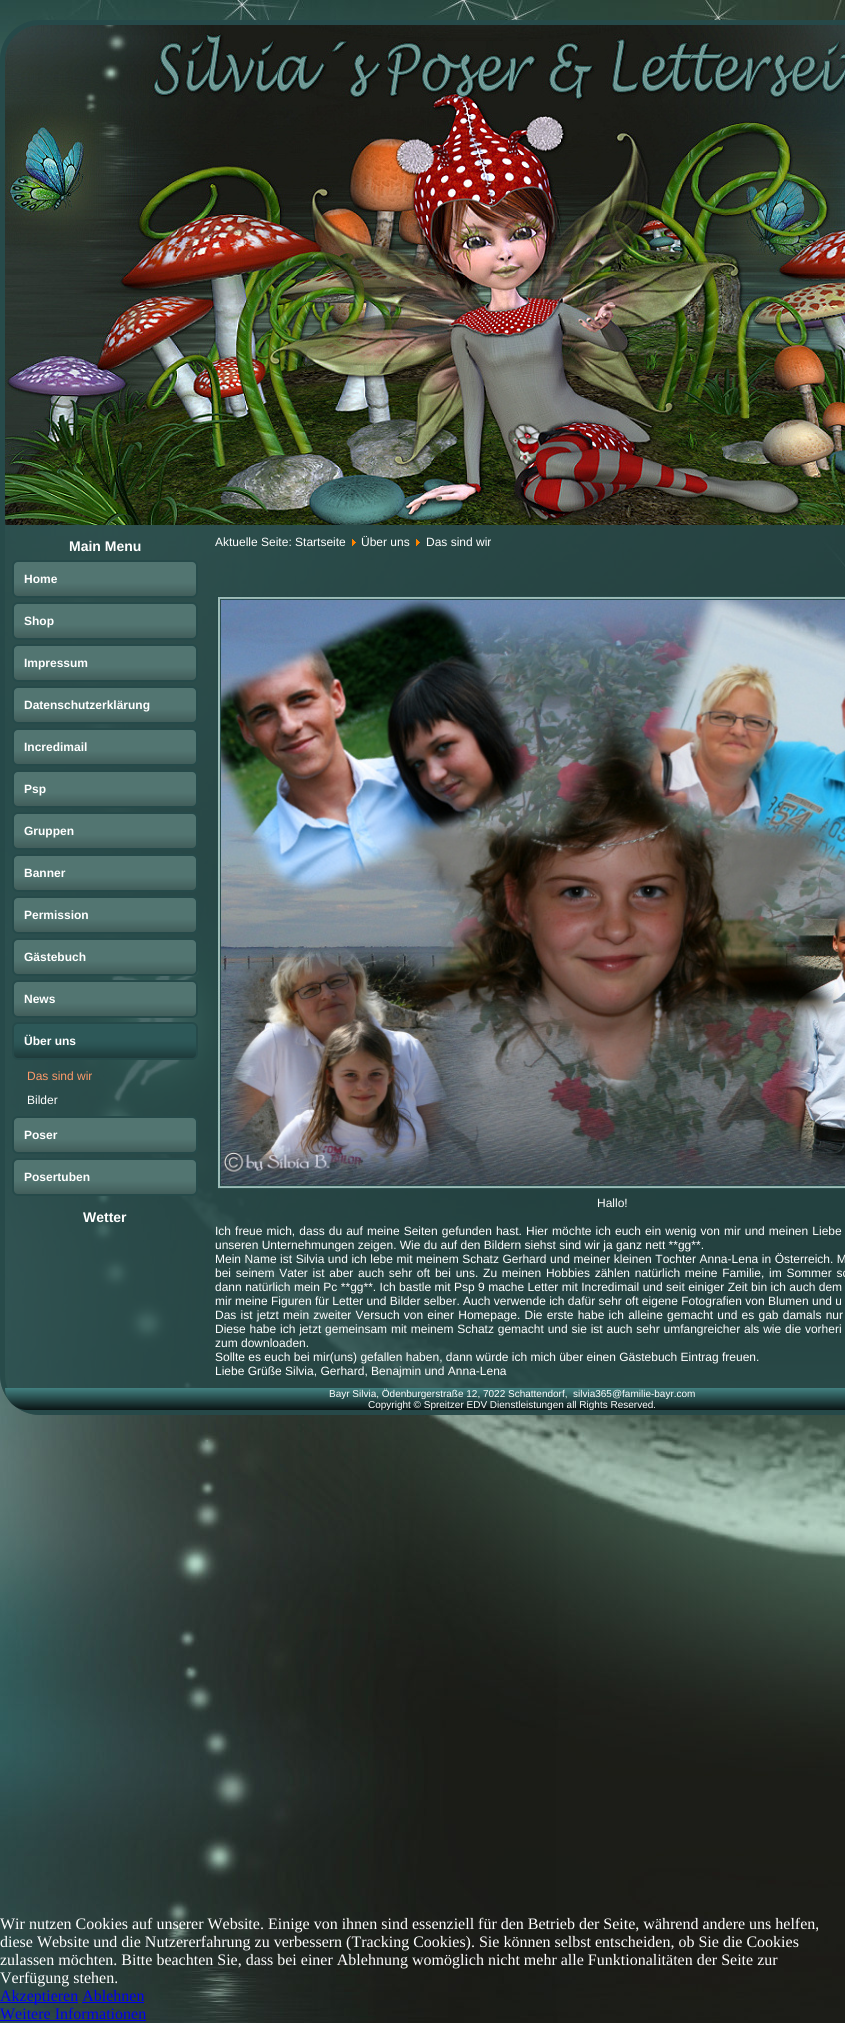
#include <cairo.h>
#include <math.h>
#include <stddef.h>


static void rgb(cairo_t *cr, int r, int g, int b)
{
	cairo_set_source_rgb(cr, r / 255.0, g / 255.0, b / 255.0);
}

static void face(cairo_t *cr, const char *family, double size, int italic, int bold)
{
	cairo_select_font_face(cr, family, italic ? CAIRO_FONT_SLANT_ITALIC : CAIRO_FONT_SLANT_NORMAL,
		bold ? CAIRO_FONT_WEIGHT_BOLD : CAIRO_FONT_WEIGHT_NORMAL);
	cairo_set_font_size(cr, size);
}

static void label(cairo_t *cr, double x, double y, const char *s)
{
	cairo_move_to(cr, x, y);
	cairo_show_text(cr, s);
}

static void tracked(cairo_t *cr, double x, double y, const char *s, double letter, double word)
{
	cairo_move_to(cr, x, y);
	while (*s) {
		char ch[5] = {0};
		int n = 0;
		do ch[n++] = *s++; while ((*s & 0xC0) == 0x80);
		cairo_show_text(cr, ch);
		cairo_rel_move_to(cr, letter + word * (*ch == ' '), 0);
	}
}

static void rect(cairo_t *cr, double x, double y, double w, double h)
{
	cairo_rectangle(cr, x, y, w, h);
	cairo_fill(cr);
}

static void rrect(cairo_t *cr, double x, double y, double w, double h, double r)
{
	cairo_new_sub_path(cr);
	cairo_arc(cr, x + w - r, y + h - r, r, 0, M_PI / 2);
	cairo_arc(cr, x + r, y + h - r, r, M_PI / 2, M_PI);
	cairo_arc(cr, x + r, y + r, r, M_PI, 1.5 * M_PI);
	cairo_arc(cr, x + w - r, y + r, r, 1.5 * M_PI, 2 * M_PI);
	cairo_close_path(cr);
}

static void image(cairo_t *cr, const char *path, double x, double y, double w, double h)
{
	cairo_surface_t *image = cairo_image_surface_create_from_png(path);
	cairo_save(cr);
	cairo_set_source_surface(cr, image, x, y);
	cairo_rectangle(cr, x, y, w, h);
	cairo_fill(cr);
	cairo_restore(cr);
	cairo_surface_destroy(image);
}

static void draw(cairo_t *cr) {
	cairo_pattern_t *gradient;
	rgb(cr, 255, 255, 255);
	cairo_paint(cr);
	image(cr, "image0.png", 0, 0, 845, 2023);
	cairo_set_source_rgba(cr, 0.149, 0.29, 0.29, 0.8);
	rrect(cr, 0, 20, 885, 1395, 40);
	cairo_fill(cr);
	rrect(cr, 2.5, 22.5, 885, 1390, 37.5);
	cairo_set_source_rgba(cr, 0.149, 0.286, 0.286, 0.8);
	cairo_set_line_width(cr, 5);
	cairo_stroke(cr);
	image(cr, "image1.png", 5, 25, 840, 500);
	face(cr, "Liberation Sans", 14, 0, 1);
	rgb(cr, 255, 255, 255);
	label(cr, 69, 551, "Main Menu");
	gradient = cairo_pattern_create_linear(105, 560, 105, 598);
	cairo_pattern_add_color_stop_rgba(gradient, 0, 0.322, 0.459, 0.443, 1);
	cairo_pattern_add_color_stop_rgba(gradient, 0.6, 0.322, 0.459, 0.443, 1);
	cairo_pattern_add_color_stop_rgba(gradient, 1, 0.247, 0.353, 0.341, 1);
	cairo_set_source(cr, gradient);
	cairo_pattern_destroy(gradient);
	rrect(cr, 13, 561, 184, 36, 5);
	cairo_fill_preserve(cr);
	rgb(cr, 38, 74, 74);
	cairo_set_line_width(cr, 2);
	cairo_stroke(cr);
	face(cr, "Liberation Sans", 12, 0, 1);
	rgb(cr, 255, 255, 255);
	label(cr, 24, 583, "Home");
	gradient = cairo_pattern_create_linear(105, 602, 105, 640);
	cairo_pattern_add_color_stop_rgba(gradient, 0, 0.322, 0.459, 0.443, 1);
	cairo_pattern_add_color_stop_rgba(gradient, 0.6, 0.322, 0.459, 0.443, 1);
	cairo_pattern_add_color_stop_rgba(gradient, 1, 0.247, 0.353, 0.341, 1);
	cairo_set_source(cr, gradient);
	cairo_pattern_destroy(gradient);
	rrect(cr, 13, 603, 184, 36, 5);
	cairo_fill_preserve(cr);
	rgb(cr, 38, 74, 74);
	cairo_stroke(cr);
	rgb(cr, 255, 255, 255);
	label(cr, 24, 625, "Shop");
	gradient = cairo_pattern_create_linear(105, 644, 105, 682);
	cairo_pattern_add_color_stop_rgba(gradient, 0, 0.322, 0.459, 0.443, 1);
	cairo_pattern_add_color_stop_rgba(gradient, 0.6, 0.322, 0.459, 0.443, 1);
	cairo_pattern_add_color_stop_rgba(gradient, 1, 0.247, 0.353, 0.341, 1);
	cairo_set_source(cr, gradient);
	cairo_pattern_destroy(gradient);
	rrect(cr, 13, 645, 184, 36, 5);
	cairo_fill_preserve(cr);
	rgb(cr, 38, 74, 74);
	cairo_stroke(cr);
	rgb(cr, 255, 255, 255);
	label(cr, 24, 667, "Impressum");
	gradient = cairo_pattern_create_linear(105, 686, 105, 724);
	cairo_pattern_add_color_stop_rgba(gradient, 0, 0.322, 0.459, 0.443, 1);
	cairo_pattern_add_color_stop_rgba(gradient, 0.6, 0.322, 0.459, 0.443, 1);
	cairo_pattern_add_color_stop_rgba(gradient, 1, 0.247, 0.353, 0.341, 1);
	cairo_set_source(cr, gradient);
	cairo_pattern_destroy(gradient);
	rrect(cr, 13, 687, 184, 36, 5);
	cairo_fill_preserve(cr);
	rgb(cr, 38, 74, 74);
	cairo_stroke(cr);
	rgb(cr, 255, 255, 255);
	label(cr, 24, 709, "Datenschutzerklärung");
	gradient = cairo_pattern_create_linear(105, 728, 105, 766);
	cairo_pattern_add_color_stop_rgba(gradient, 0, 0.322, 0.459, 0.443, 1);
	cairo_pattern_add_color_stop_rgba(gradient, 0.6, 0.322, 0.459, 0.443, 1);
	cairo_pattern_add_color_stop_rgba(gradient, 1, 0.247, 0.353, 0.341, 1);
	cairo_set_source(cr, gradient);
	cairo_pattern_destroy(gradient);
	rrect(cr, 13, 729, 184, 36, 5);
	cairo_fill_preserve(cr);
	rgb(cr, 38, 74, 74);
	cairo_stroke(cr);
	rgb(cr, 255, 255, 255);
	label(cr, 24, 751, "Incredimail");
	gradient = cairo_pattern_create_linear(105, 770, 105, 808);
	cairo_pattern_add_color_stop_rgba(gradient, 0, 0.322, 0.459, 0.443, 1);
	cairo_pattern_add_color_stop_rgba(gradient, 0.6, 0.322, 0.459, 0.443, 1);
	cairo_pattern_add_color_stop_rgba(gradient, 1, 0.247, 0.353, 0.341, 1);
	cairo_set_source(cr, gradient);
	cairo_pattern_destroy(gradient);
	rrect(cr, 13, 771, 184, 36, 5);
	cairo_fill_preserve(cr);
	rgb(cr, 38, 74, 74);
	cairo_stroke(cr);
	rgb(cr, 255, 255, 255);
	label(cr, 24, 793, "Psp");
	gradient = cairo_pattern_create_linear(105, 812, 105, 850);
	cairo_pattern_add_color_stop_rgba(gradient, 0, 0.322, 0.459, 0.443, 1);
	cairo_pattern_add_color_stop_rgba(gradient, 0.6, 0.322, 0.459, 0.443, 1);
	cairo_pattern_add_color_stop_rgba(gradient, 1, 0.247, 0.353, 0.341, 1);
	cairo_set_source(cr, gradient);
	cairo_pattern_destroy(gradient);
	rrect(cr, 13, 813, 184, 36, 5);
	cairo_fill_preserve(cr);
	rgb(cr, 38, 74, 74);
	cairo_stroke(cr);
	rgb(cr, 255, 255, 255);
	label(cr, 24, 835, "Gruppen");
	gradient = cairo_pattern_create_linear(105, 854, 105, 892);
	cairo_pattern_add_color_stop_rgba(gradient, 0, 0.322, 0.459, 0.443, 1);
	cairo_pattern_add_color_stop_rgba(gradient, 0.6, 0.322, 0.459, 0.443, 1);
	cairo_pattern_add_color_stop_rgba(gradient, 1, 0.247, 0.353, 0.341, 1);
	cairo_set_source(cr, gradient);
	cairo_pattern_destroy(gradient);
	rrect(cr, 13, 855, 184, 36, 5);
	cairo_fill_preserve(cr);
	rgb(cr, 38, 74, 74);
	cairo_stroke(cr);
	rgb(cr, 255, 255, 255);
	label(cr, 24, 877, "Banner");
	gradient = cairo_pattern_create_linear(105, 896, 105, 934);
	cairo_pattern_add_color_stop_rgba(gradient, 0, 0.322, 0.459, 0.443, 1);
	cairo_pattern_add_color_stop_rgba(gradient, 0.6, 0.322, 0.459, 0.443, 1);
	cairo_pattern_add_color_stop_rgba(gradient, 1, 0.247, 0.353, 0.341, 1);
	cairo_set_source(cr, gradient);
	cairo_pattern_destroy(gradient);
	rrect(cr, 13, 897, 184, 36, 5);
	cairo_fill_preserve(cr);
	rgb(cr, 38, 74, 74);
	cairo_stroke(cr);
	rgb(cr, 255, 255, 255);
	label(cr, 24, 919, "Permission");
	gradient = cairo_pattern_create_linear(105, 938, 105, 976);
	cairo_pattern_add_color_stop_rgba(gradient, 0, 0.322, 0.459, 0.443, 1);
	cairo_pattern_add_color_stop_rgba(gradient, 0.6, 0.322, 0.459, 0.443, 1);
	cairo_pattern_add_color_stop_rgba(gradient, 1, 0.247, 0.353, 0.341, 1);
	cairo_set_source(cr, gradient);
	cairo_pattern_destroy(gradient);
	rrect(cr, 13, 939, 184, 36, 5);
	cairo_fill_preserve(cr);
	rgb(cr, 38, 74, 74);
	cairo_stroke(cr);
	rgb(cr, 255, 255, 255);
	label(cr, 24, 961, "Gästebuch");
	gradient = cairo_pattern_create_linear(105, 980, 105, 1018);
	cairo_pattern_add_color_stop_rgba(gradient, 0, 0.322, 0.459, 0.443, 1);
	cairo_pattern_add_color_stop_rgba(gradient, 0.6, 0.322, 0.459, 0.443, 1);
	cairo_pattern_add_color_stop_rgba(gradient, 1, 0.247, 0.353, 0.341, 1);
	cairo_set_source(cr, gradient);
	cairo_pattern_destroy(gradient);
	rrect(cr, 13, 981, 184, 36, 5);
	cairo_fill_preserve(cr);
	rgb(cr, 38, 74, 74);
	cairo_stroke(cr);
	rgb(cr, 255, 255, 255);
	label(cr, 24, 1003, "News");
	gradient = cairo_pattern_create_linear(105, 1022, 105, 1060);
	cairo_pattern_add_color_stop_rgba(gradient, 0, 0.176, 0.345, 0.345, 1);
	cairo_pattern_add_color_stop_rgba(gradient, 0.5, 0.176, 0.345, 0.345, 1);
	cairo_pattern_add_color_stop_rgba(gradient, 0.6, 0.169, 0.329, 0.329, 1);
	cairo_pattern_add_color_stop_rgba(gradient, 1, 0.11, 0.212, 0.212, 1);
	cairo_set_source(cr, gradient);
	cairo_pattern_destroy(gradient);
	rrect(cr, 13, 1023, 184, 36, 5);
	cairo_fill_preserve(cr);
	rgb(cr, 38, 74, 74);
	cairo_stroke(cr);
	rgb(cr, 255, 255, 255);
	label(cr, 24, 1045, "Über uns");
	face(cr, "Liberation Sans", 12, 0, 0);
	rgb(cr, 252, 154, 105);
	label(cr, 27, 1080, "Das sind wir");
	rgb(cr, 255, 255, 255);
	label(cr, 27, 1104, "Bilder");
	gradient = cairo_pattern_create_linear(105, 1116, 105, 1154);
	cairo_pattern_add_color_stop_rgba(gradient, 0, 0.322, 0.459, 0.443, 1);
	cairo_pattern_add_color_stop_rgba(gradient, 0.6, 0.322, 0.459, 0.443, 1);
	cairo_pattern_add_color_stop_rgba(gradient, 1, 0.247, 0.353, 0.341, 1);
	cairo_set_source(cr, gradient);
	cairo_pattern_destroy(gradient);
	rrect(cr, 13, 1117, 184, 36, 5);
	cairo_fill_preserve(cr);
	rgb(cr, 38, 74, 74);
	cairo_stroke(cr);
	face(cr, "Liberation Sans", 12, 0, 1);
	rgb(cr, 255, 255, 255);
	label(cr, 24, 1139, "Poser");
	gradient = cairo_pattern_create_linear(105, 1158, 105, 1196);
	cairo_pattern_add_color_stop_rgba(gradient, 0, 0.322, 0.459, 0.443, 1);
	cairo_pattern_add_color_stop_rgba(gradient, 0.6, 0.322, 0.459, 0.443, 1);
	cairo_pattern_add_color_stop_rgba(gradient, 1, 0.247, 0.353, 0.341, 1);
	cairo_set_source(cr, gradient);
	cairo_pattern_destroy(gradient);
	rrect(cr, 13, 1159, 184, 36, 5);
	cairo_fill_preserve(cr);
	rgb(cr, 38, 74, 74);
	cairo_stroke(cr);
	rgb(cr, 255, 255, 255);
	label(cr, 24, 1181, "Posertuben");
	face(cr, "Liberation Sans", 14, 0, 1);
	label(cr, 83, 1222, "Wetter");
	face(cr, "Liberation Sans", 12, 0, 0);
	label(cr, 215, 546, "Aktuelle Seite: Startseite");
	image(cr, "image2.png", 352, 539, 4, 7);
	label(cr, 361, 546, "Über uns");
	image(cr, "image3.png", 416, 539, 4, 7);
	label(cr, 426, 546, "Das sind wir");
	image(cr, "image4.png", 217, 596, 628, 593);
	label(cr, 597, 1207, "Hallo!");
	tracked(cr, 215, 1235, "Ich freue mich, dass du auf meine Seiten gefunden hast. Hier möchte ich euch ein wenig von mir und meinen Liebe", 0, 0.75);
	label(cr, 215, 1249, "unseren Unternehmungen zeigen. Wie du auf den Bildern siehst sind wir ja ganz nett **gg**.");
	tracked(cr, 215, 1263, "Mein Name ist Silvia und ich lebe mit meinem Schatz Gerhard und meiner kleinen Tochter Anna-Lena in Österreich. M", 0, 0.2);
	tracked(cr, 215, 1277, "bei seinem Vater ist aber auch sehr oft bei uns. Zu meinen Hobbies zählen natürlich meine Familie, im Sommer sc", 0, 1.4);
	tracked(cr, 215, 1291, "dann natürlich mein Pc **gg**. Ich bastle mit Psp 9 mache Letter mit Incredimail und seit einiger Zeit bin ich auch dem", 0, 0.1);
	label(cr, 215, 1305, "mir meine Figuren für Letter und Bilder selber. Auch verwende ich dafür sehr oft eigene Fotografien von Blumen und u");
	tracked(cr, 215, 1319, "Das ist jetzt mein zweiter Versuch von einer Homepage. Die erste habe ich alleine gemacht und es gab damals nur", 0, 0.9);
	tracked(cr, 215, 1333, "Diese habe ich jetzt gemeinsam mit meinem Schatz gemacht und sie ist auch sehr umfangreicher als wie die vorheri", 0, 0.5);
	label(cr, 215, 1347, "zum downloaden.");
	label(cr, 215, 1361, "Sollte es euch bei mir(uns) gefallen haben, dann würde ich mich über einen Gästebuch Eintrag freuen.");
	label(cr, 215, 1375, "Liebe Grüße Silvia, Gerhard, Benajmin und Anna-Lena");
	gradient = cairo_pattern_create_linear(512, 1388, 512, 1410);
	cairo_pattern_add_color_stop_rgba(gradient, 0, 0.259, 0.502, 0.502, 1);
	cairo_pattern_add_color_stop_rgba(gradient, 1, 0.039, 0.078, 0.078, 1);
	cairo_set_source(cr, gradient);
	cairo_pattern_destroy(gradient);
	cairo_new_path(cr);
	cairo_move_to(cr, 5, 1388);
	cairo_line_to(cr, 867, 1388);
	cairo_curve_to(cr, 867, 1400, 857, 1410, 845, 1410);
	cairo_line_to(cr, 27, 1410);
	cairo_curve_to(cr, 15, 1410, 5, 1400, 5, 1388);
	cairo_close_path(cr);
	cairo_fill(cr);
	face(cr, "Liberation Sans", 10, 0, 0);
	rgb(cr, 255, 255, 255);
	label(cr, 329, 1397, "Bayr Silvia, Ödenburgerstraße 12, 7022 Schattendorf,");
	label(cr, 573, 1397, "silvia365@familie-bayr.com");
	label(cr, 368, 1408, "Copyright © Spreitzer EDV Dienstleistungen all Rights Reserved.");
	face(cr, "Liberation Serif", 16, 0, 0);
	label(cr, 0, 1929, "Wir nutzen Cookies auf unserer Website. Einige von ihnen sind essenziell für den Betrieb der Seite, während andere uns helfen,");
	label(cr, 0, 1947, "diese Website und die Nutzererfahrung zu verbessern (Tracking Cookies). Sie können selbst entscheiden, ob Sie die Cookies");
	label(cr, 0, 1965, "zulassen möchten. Bitte beachten Sie, dass bei einer Ablehnung womöglich nicht mehr alle Funktionalitäten der Seite zur");
	label(cr, 0, 1983, "Verfügung stehen.");
	rgb(cr, 0, 0, 238);
	rect(cr, 0, 2002, 78, 1);
	label(cr, 0, 2001, "Akzeptieren Ablehnen");
	rect(cr, 82, 2002, 62, 1);
	label(cr, 0, 2019, "Weitere Informationen");
	rect(cr, 0, 2020, 146, 1);
}

int main(void) {
	cairo_surface_t *surface = cairo_image_surface_create(CAIRO_FORMAT_RGB24, 845, 2023);
	cairo_t *cr = cairo_create(surface);
	cairo_font_options_t *options = cairo_font_options_create();
	cairo_font_options_set_hint_metrics(options, CAIRO_HINT_METRICS_OFF);
	cairo_font_options_set_hint_style(options, CAIRO_HINT_STYLE_NONE);
	cairo_set_font_options(cr, options);
	cairo_set_miter_limit(cr, 4);
	draw(cr);
	cairo_surface_write_to_png(surface, "render.png");
	cairo_font_options_destroy(options);
	cairo_destroy(cr);
	cairo_surface_destroy(surface);
	return 0;
}
